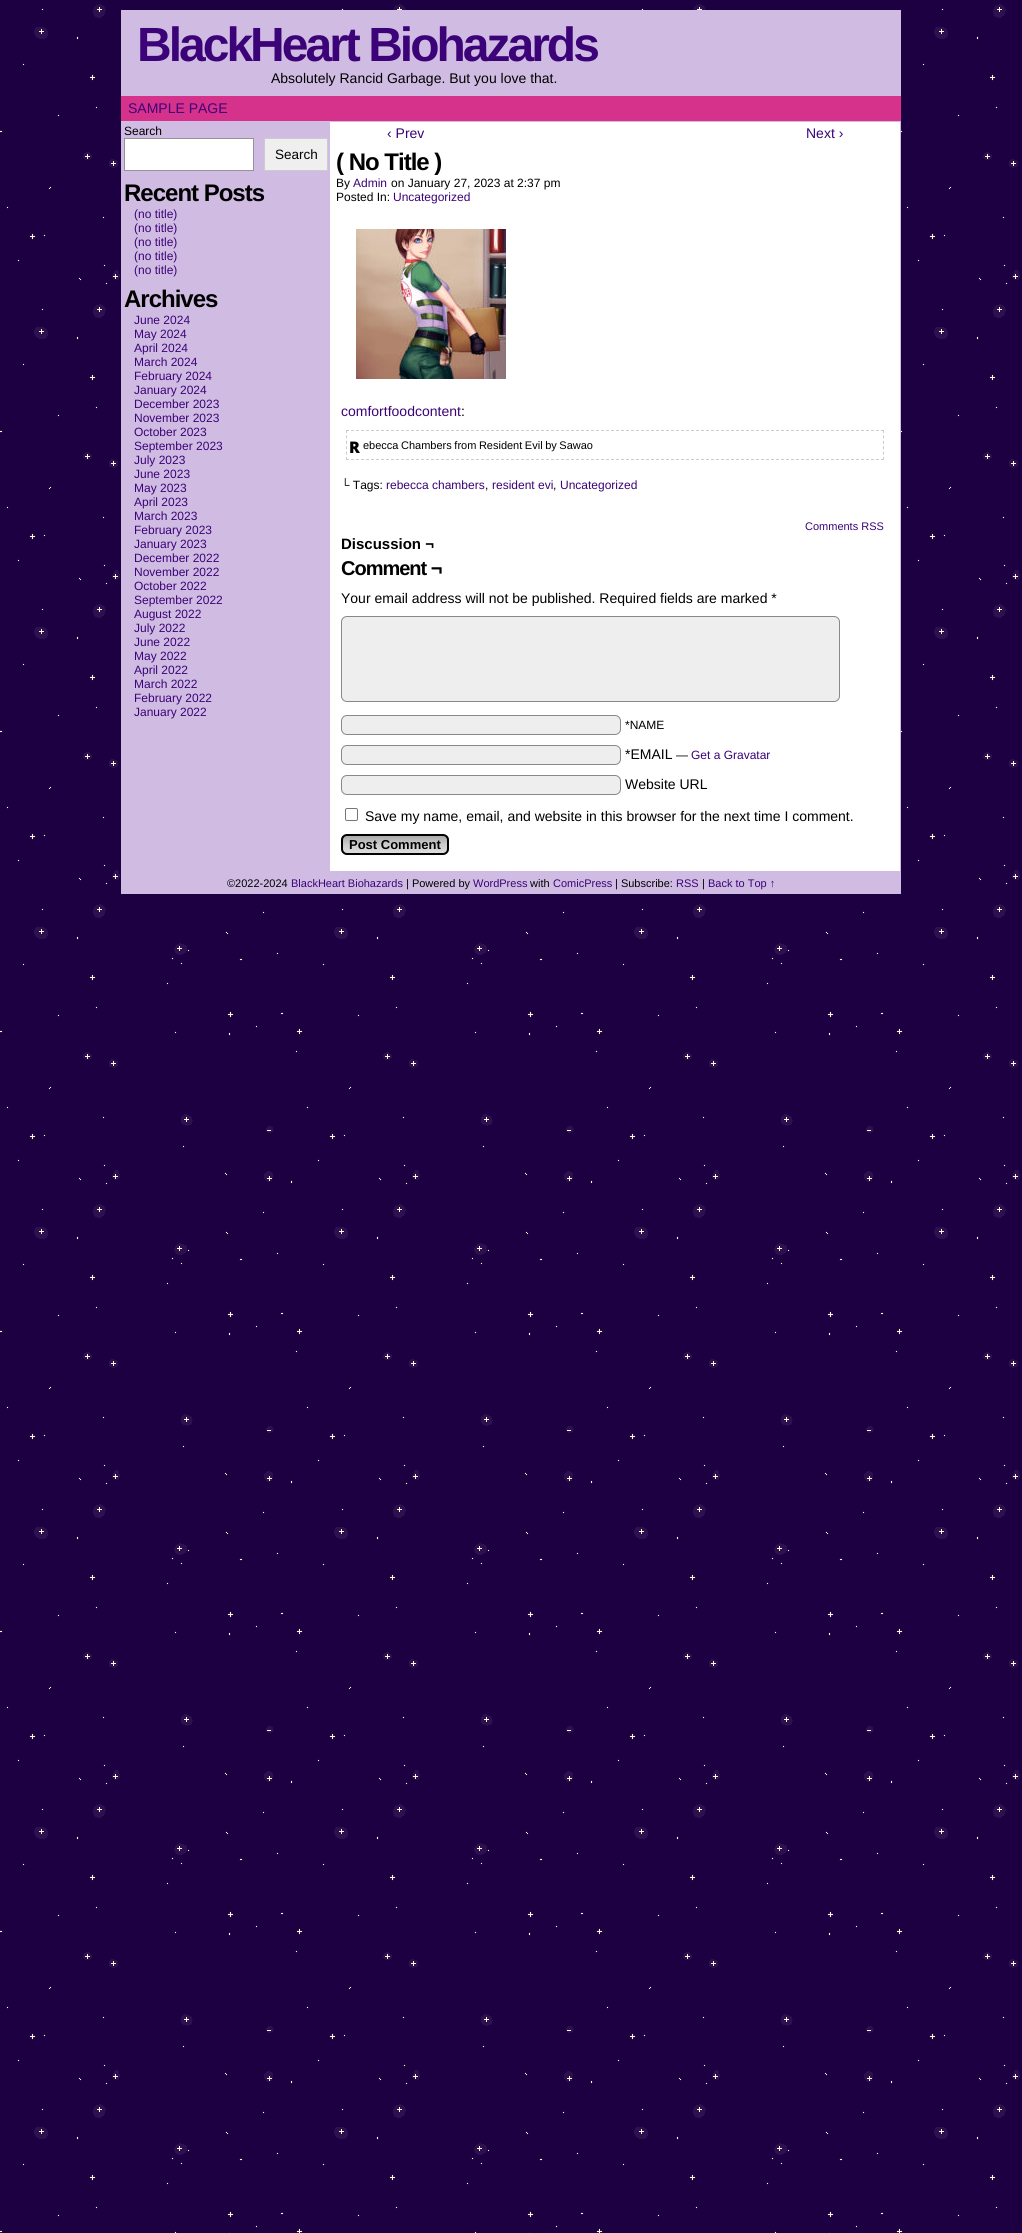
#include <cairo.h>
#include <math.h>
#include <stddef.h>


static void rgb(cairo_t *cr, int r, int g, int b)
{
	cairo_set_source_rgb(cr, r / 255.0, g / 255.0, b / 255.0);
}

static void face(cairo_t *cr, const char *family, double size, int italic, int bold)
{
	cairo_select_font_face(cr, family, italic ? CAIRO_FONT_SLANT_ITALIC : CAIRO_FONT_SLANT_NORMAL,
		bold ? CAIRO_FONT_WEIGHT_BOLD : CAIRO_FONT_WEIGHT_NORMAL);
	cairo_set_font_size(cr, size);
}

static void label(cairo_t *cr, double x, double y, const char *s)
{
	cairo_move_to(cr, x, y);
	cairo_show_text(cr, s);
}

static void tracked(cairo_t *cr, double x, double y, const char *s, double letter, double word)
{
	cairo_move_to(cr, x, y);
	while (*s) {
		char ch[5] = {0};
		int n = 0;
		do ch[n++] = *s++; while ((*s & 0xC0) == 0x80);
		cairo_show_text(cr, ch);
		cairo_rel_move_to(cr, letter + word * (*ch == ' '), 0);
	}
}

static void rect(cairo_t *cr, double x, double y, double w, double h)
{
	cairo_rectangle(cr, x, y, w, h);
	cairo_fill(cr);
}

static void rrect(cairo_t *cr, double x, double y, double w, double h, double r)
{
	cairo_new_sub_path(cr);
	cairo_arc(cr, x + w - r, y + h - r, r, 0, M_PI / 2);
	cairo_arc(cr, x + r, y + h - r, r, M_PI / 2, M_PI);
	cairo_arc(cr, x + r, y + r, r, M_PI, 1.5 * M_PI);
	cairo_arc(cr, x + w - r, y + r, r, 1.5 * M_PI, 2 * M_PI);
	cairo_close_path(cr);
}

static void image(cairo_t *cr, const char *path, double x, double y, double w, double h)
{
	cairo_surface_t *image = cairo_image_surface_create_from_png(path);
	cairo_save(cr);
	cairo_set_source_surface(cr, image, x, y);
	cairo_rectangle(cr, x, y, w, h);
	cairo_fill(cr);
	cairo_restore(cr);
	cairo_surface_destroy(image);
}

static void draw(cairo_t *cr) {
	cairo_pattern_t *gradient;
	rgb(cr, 255, 255, 255);
	cairo_paint(cr);
	image(cr, "image0.png", 0, 0, 1022, 2233);
	rgb(cr, 208, 188, 226);
	rect(cr, 121, 10, 780, 884);
	face(cr, "Liberation Sans", 48, 0, 1);
	rgb(cr, 59, 3, 119);
	tracked(cr, 137, 61, "BlackHeart Biohazards", -3, 0);
	face(cr, "Liberation Sans", 14, 0, 0);
	rgb(cr, 0, 0, 0);
	label(cr, 271, 83, "Absolutely Rancid Garbage. But you love that.");
	rgb(cr, 214, 49, 139);
	rect(cr, 121, 96, 780, 25);
	rgb(cr, 59, 3, 119);
	label(cr, 128, 113, "SAMPLE PAGE");
	face(cr, "Liberation Sans", 12, 0, 0);
	rgb(cr, 0, 0, 0);
	label(cr, 124, 135, "Search");
	rgb(cr, 255, 255, 255);
	cairo_rectangle(cr, 124.5, 138.5, 129, 32);
	cairo_fill_preserve(cr);
	rgb(cr, 148, 148, 148);
	cairo_set_line_width(cr, 1);
	cairo_stroke(cr);
	rgb(cr, 239, 239, 239);
	cairo_rectangle(cr, 264.5, 138.5, 63, 32);
	cairo_fill_preserve(cr);
	rgb(cr, 204, 204, 204);
	cairo_stroke(cr);
	face(cr, "Liberation Sans", 13.5, 0, 0);
	rgb(cr, 0, 0, 0);
	label(cr, 275, 159, "Search");
	face(cr, "Liberation Sans", 24, 0, 1);
	tracked(cr, 124, 201, "Recent Posts", -1, 0);
	face(cr, "Liberation Sans", 12, 0, 0);
	rgb(cr, 59, 3, 119);
	label(cr, 134, 218, "(no title)");
	label(cr, 134, 232, "(no title)");
	label(cr, 134, 246, "(no title)");
	label(cr, 134, 260, "(no title)");
	label(cr, 134, 274, "(no title)");
	face(cr, "Liberation Sans", 24, 0, 1);
	rgb(cr, 0, 0, 0);
	tracked(cr, 124, 307, "Archives", -1, 0);
	face(cr, "Liberation Sans", 12, 0, 0);
	rgb(cr, 59, 3, 119);
	label(cr, 134, 324, "June 2024");
	label(cr, 134, 338, "May 2024");
	label(cr, 134, 352, "April 2024");
	label(cr, 134, 366, "March 2024");
	label(cr, 134, 380, "February 2024");
	label(cr, 134, 394, "January 2024");
	label(cr, 134, 408, "December 2023");
	label(cr, 134, 422, "November 2023");
	label(cr, 134, 436, "October 2023");
	label(cr, 134, 450, "September 2023");
	label(cr, 134, 464, "July 2023");
	label(cr, 134, 478, "June 2023");
	label(cr, 134, 492, "May 2023");
	label(cr, 134, 506, "April 2023");
	label(cr, 134, 520, "March 2023");
	label(cr, 134, 534, "February 2023");
	label(cr, 134, 548, "January 2023");
	label(cr, 134, 562, "December 2022");
	label(cr, 134, 576, "November 2022");
	label(cr, 134, 590, "October 2022");
	label(cr, 134, 604, "September 2022");
	label(cr, 134, 618, "August 2022");
	label(cr, 134, 632, "July 2022");
	label(cr, 134, 646, "June 2022");
	label(cr, 134, 660, "May 2022");
	label(cr, 134, 674, "April 2022");
	label(cr, 134, 688, "March 2022");
	label(cr, 134, 702, "February 2022");
	label(cr, 134, 716, "January 2022");
	rgb(cr, 255, 255, 255);
	rect(cr, 330, 122, 570, 749);
	face(cr, "Liberation Sans", 14, 0, 0);
	rgb(cr, 59, 3, 119);
	label(cr, 387, 138, "‹ Prev");
	label(cr, 806, 138, "Next ›");
	face(cr, "Liberation Sans", 24, 0, 1);
	rgb(cr, 0, 0, 0);
	tracked(cr, 336, 170, "( No Title )", -1, 0);
	face(cr, "Liberation Sans", 12, 0, 0);
	label(cr, 336, 187, "By");
	rgb(cr, 59, 3, 119);
	label(cr, 353, 187, "Admin");
	rgb(cr, 0, 0, 0);
	label(cr, 391, 187, "on January 27, 2023 at 2:37 pm");
	label(cr, 336, 201, "Posted In:");
	rgb(cr, 59, 3, 119);
	label(cr, 393, 201, "Uncategorized");
	image(cr, "image1.png", 356, 229, 150, 150);
	face(cr, "Liberation Sans", 14, 0, 0);
	label(cr, 341, 416, "comfortfoodcontent");
	rgb(cr, 0, 0, 0);
	label(cr, 461, 416, ":");
	cairo_new_path(cr);
	cairo_move_to(cr, 346, 430.5);
	cairo_line_to(cr, 884, 430.5);
	rgb(cr, 204, 204, 204);
	cairo_set_dash(cr, (double[]){3, 2}, 2, 0);
	cairo_stroke(cr);
	cairo_new_path(cr);
	cairo_move_to(cr, 883.5, 430);
	cairo_line_to(cr, 883.5, 460);
	cairo_set_dash(cr, (double[]){3, 2.4}, 2, 0);
	cairo_stroke(cr);
	cairo_new_path(cr);
	cairo_move_to(cr, 346, 459.5);
	cairo_line_to(cr, 884, 459.5);
	cairo_set_dash(cr, (double[]){3, 2}, 2, 0);
	cairo_stroke(cr);
	cairo_new_path(cr);
	cairo_move_to(cr, 346.5, 430);
	cairo_line_to(cr, 346.5, 460);
	cairo_set_dash(cr, (double[]){3, 2.4}, 2, 0);
	cairo_stroke(cr);
	face(cr, "Noto Sans Black", 16, 0, 0);
	rgb(cr, 0, 0, 0);
	label(cr, 349, 453, "R");
	face(cr, "Liberation Sans", 11, 0, 0);
	tracked(cr, 363, 449, "ebecca Chambers from Resident Evil by Sawao", 0, -0.5);
	face(cr, "Liberation Sans", 12, 0, 0);
	label(cr, 341, 489, "└ Tags:");
	rgb(cr, 59, 3, 119);
	label(cr, 386, 489, "rebecca chambers");
	rgb(cr, 0, 0, 0);
	label(cr, 485, 489, ",");
	rgb(cr, 59, 3, 119);
	label(cr, 492, 489, "resident evi");
	rgb(cr, 0, 0, 0);
	label(cr, 553, 489, ",");
	rgb(cr, 59, 3, 119);
	label(cr, 560, 489, "Uncategorized");
	face(cr, "Liberation Sans", 11, 0, 0);
	label(cr, 805, 530, "Comments RSS");
	face(cr, "Liberation Sans", 15, 0, 1);
	rgb(cr, 0, 0, 0);
	label(cr, 341, 549, "Discussion ¬");
	face(cr, "Liberation Sans", 20, 0, 1);
	tracked(cr, 341, 575, "Comment ¬", -1, 0);
	face(cr, "Liberation Sans", 14, 0, 0);
	label(cr, 341, 603, "Your email address will not be published. Required fields are marked *");
	rgb(cr, 238, 238, 238);
	rrect(cr, 341.5, 616.5, 498, 85, 5.5);
	cairo_fill_preserve(cr);
	rgb(cr, 136, 136, 136);
	cairo_set_dash(cr, NULL, 0, 0);
	cairo_stroke(cr);
	rgb(cr, 238, 238, 238);
	rrect(cr, 341.5, 715.5, 279, 19, 5.5);
	cairo_fill_preserve(cr);
	rgb(cr, 136, 136, 136);
	cairo_stroke(cr);
	face(cr, "Liberation Sans", 12, 0, 0);
	rgb(cr, 0, 0, 0);
	label(cr, 625, 729, "*NAME");
	rgb(cr, 238, 238, 238);
	rrect(cr, 341.5, 745.5, 279, 19, 5.5);
	cairo_fill_preserve(cr);
	rgb(cr, 136, 136, 136);
	cairo_stroke(cr);
	face(cr, "Liberation Sans", 14, 0, 0);
	rgb(cr, 0, 0, 0);
	label(cr, 625, 759, "*EMAIL");
	face(cr, "Liberation Sans", 12, 0, 0);
	label(cr, 676, 759, "—");
	rgb(cr, 59, 3, 119);
	label(cr, 691, 759, "Get a Gravatar");
	rgb(cr, 238, 238, 238);
	rrect(cr, 341.5, 775.5, 279, 19, 5.5);
	cairo_fill_preserve(cr);
	rgb(cr, 136, 136, 136);
	cairo_stroke(cr);
	face(cr, "Liberation Sans", 14, 0, 0);
	rgb(cr, 0, 0, 0);
	label(cr, 625, 789, "Website URL");
	rrect(cr, 345.5, 808.5, 12, 12, 1.5);
	rgb(cr, 118, 118, 118);
	cairo_stroke(cr);
	rgb(cr, 0, 0, 0);
	label(cr, 365, 821, "Save my name, email, and website in this browser for the next time I comment.");
	cairo_save(cr);
	rrect(cr, 341, 834, 108, 21, 6);
	cairo_clip(cr);
	gradient = cairo_pattern_create_linear(395, 836, 395, 853);
	cairo_pattern_add_color_stop_rgba(gradient, 0, 0.667, 0.667, 0.667, 1);
	cairo_pattern_add_color_stop_rgba(gradient, 0.5, 0.8, 0.8, 0.8, 1);
	cairo_pattern_add_color_stop_rgba(gradient, 1, 0.867, 0.867, 0.867, 1);
	cairo_set_source(cr, gradient);
	cairo_pattern_destroy(gradient);
	rect(cr, 341, 836, 108, 17);
	cairo_restore(cr);
	rrect(cr, 342, 835, 106, 19, 5);
	cairo_set_line_width(cr, 2);
	cairo_stroke(cr);
	face(cr, "Liberation Sans", 13, 0, 1);
	label(cr, 349, 849, "Post Comment");
	face(cr, "Liberation Sans", 11, 0, 0);
	label(cr, 227, 887, "©2022-2024");
	rgb(cr, 59, 3, 119);
	label(cr, 291, 887, "BlackHeart Biohazards");
	rgb(cr, 0, 0, 0);
	label(cr, 406, 887, "| Powered by");
	rgb(cr, 59, 3, 119);
	label(cr, 473, 887, "WordPress");
	rgb(cr, 0, 0, 0);
	label(cr, 530, 887, "with");
	rgb(cr, 59, 3, 119);
	label(cr, 553, 887, "ComicPress");
	rgb(cr, 0, 0, 0);
	label(cr, 615, 887, "| Subscribe:");
	rgb(cr, 59, 3, 119);
	label(cr, 676, 887, "RSS");
	rgb(cr, 0, 0, 0);
	label(cr, 702, 887, "|");
	rgb(cr, 59, 3, 119);
	label(cr, 708, 887, "Back to Top ↑");
}

int main(void) {
	cairo_surface_t *surface = cairo_image_surface_create(CAIRO_FORMAT_RGB24, 1022, 2233);
	cairo_t *cr = cairo_create(surface);
	cairo_font_options_t *options = cairo_font_options_create();
	cairo_font_options_set_hint_metrics(options, CAIRO_HINT_METRICS_OFF);
	cairo_font_options_set_hint_style(options, CAIRO_HINT_STYLE_NONE);
	cairo_set_font_options(cr, options);
	cairo_set_miter_limit(cr, 4);
	draw(cr);
	cairo_surface_write_to_png(surface, "render.png");
	cairo_font_options_destroy(options);
	cairo_destroy(cr);
	cairo_surface_destroy(surface);
	return 0;
}
